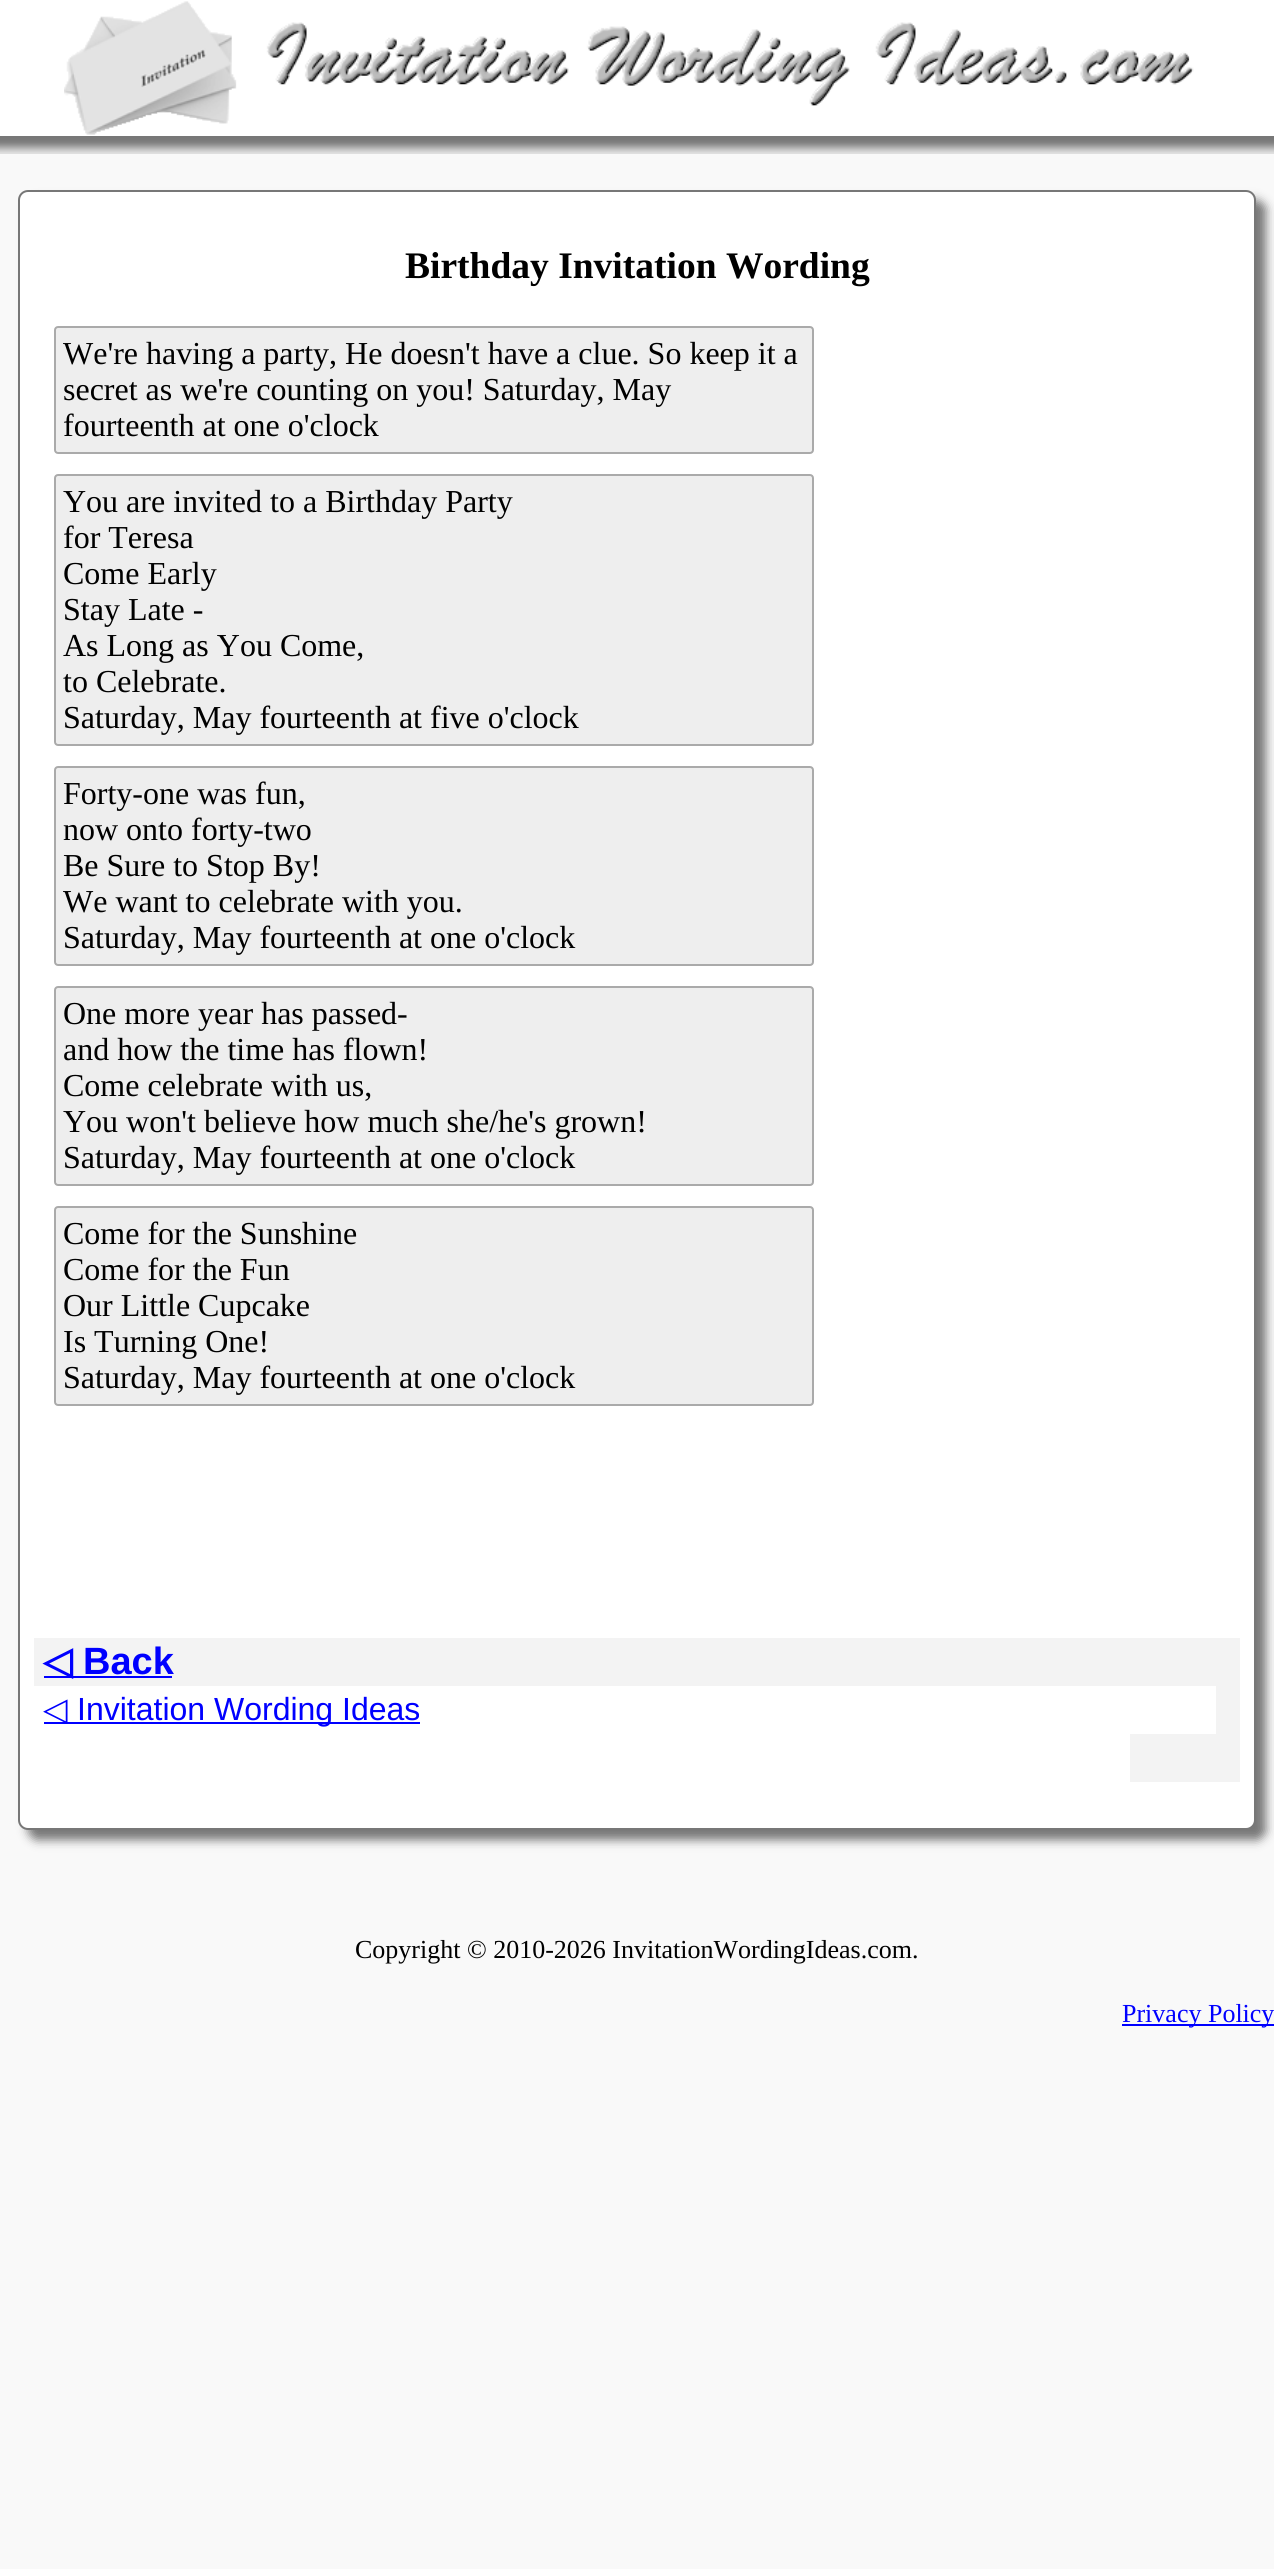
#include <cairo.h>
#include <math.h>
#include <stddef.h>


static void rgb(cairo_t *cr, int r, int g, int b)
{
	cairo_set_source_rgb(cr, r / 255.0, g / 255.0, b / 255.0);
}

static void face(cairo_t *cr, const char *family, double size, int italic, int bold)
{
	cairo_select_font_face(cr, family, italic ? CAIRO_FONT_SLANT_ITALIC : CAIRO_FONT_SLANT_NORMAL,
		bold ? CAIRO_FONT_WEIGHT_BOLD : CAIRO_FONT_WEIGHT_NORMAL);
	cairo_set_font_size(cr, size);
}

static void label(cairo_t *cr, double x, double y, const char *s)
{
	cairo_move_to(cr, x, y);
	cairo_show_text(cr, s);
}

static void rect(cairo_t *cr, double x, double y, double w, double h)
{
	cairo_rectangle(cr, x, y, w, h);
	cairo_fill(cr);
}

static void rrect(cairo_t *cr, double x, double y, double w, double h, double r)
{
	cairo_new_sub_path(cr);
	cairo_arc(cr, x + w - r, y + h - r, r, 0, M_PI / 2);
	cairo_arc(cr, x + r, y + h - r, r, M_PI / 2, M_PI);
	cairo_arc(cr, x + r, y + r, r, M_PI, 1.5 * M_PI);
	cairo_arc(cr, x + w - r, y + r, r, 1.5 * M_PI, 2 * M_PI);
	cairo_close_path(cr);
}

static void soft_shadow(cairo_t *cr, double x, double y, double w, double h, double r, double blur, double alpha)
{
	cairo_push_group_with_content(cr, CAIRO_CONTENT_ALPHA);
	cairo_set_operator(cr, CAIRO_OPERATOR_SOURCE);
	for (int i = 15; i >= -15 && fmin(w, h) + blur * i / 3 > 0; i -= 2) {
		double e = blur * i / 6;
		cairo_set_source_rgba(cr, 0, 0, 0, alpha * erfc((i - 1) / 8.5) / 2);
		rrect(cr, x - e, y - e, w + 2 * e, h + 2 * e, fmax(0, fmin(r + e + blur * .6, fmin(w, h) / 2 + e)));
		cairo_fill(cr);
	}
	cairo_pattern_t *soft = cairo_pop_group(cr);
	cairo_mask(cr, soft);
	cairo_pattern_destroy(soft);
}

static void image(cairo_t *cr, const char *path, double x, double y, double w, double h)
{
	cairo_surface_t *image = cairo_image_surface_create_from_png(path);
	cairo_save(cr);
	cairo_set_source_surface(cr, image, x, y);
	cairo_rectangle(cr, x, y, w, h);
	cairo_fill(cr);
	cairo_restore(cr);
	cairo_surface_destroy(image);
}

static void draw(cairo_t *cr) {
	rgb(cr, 249, 249, 249);
	cairo_paint(cr);
	rgb(cr, 255, 255, 255);
	rect(cr, 0, 0, 1274, 136);
	image(cr, "image0.png", 64, 1, 1130, 134);
	image(cr, "image1.png", 0, 136, 1274, 18);
	rgb(cr, 119, 119, 119);
	soft_shadow(cr, 28, 200, 1238, 1640, 10, 5, 1);
	rgb(cr, 255, 255, 255);
	rrect(cr, 19, 191, 1236, 1638, 9);
	cairo_fill_preserve(cr);
	rgb(cr, 119, 119, 119);
	cairo_stroke(cr);
	face(cr, "Liberation Serif", 37.5, 0, 1);
	rgb(cr, 0, 0, 0);
	label(cr, 405, 278, "Birthday Invitation Wording");
	rgb(cr, 238, 238, 238);
	rrect(cr, 55, 327, 758, 126, 3);
	cairo_fill_preserve(cr);
	rgb(cr, 170, 170, 170);
	cairo_stroke(cr);
	face(cr, "Liberation Serif", 32, 0, 0);
	rgb(cr, 0, 0, 0);
	label(cr, 63, 364, "We're having a party, He doesn't have a clue. So keep it a");
	label(cr, 63, 400, "secret as we're counting on you! Saturday, May");
	label(cr, 63, 436, "fourteenth at one o'clock");
	rgb(cr, 238, 238, 238);
	rrect(cr, 55, 475, 758, 270, 3);
	cairo_fill_preserve(cr);
	rgb(cr, 170, 170, 170);
	cairo_stroke(cr);
	rgb(cr, 0, 0, 0);
	label(cr, 63, 512, "You are invited to a Birthday Party");
	label(cr, 63, 548, "for Teresa");
	label(cr, 63, 584, "Come Early");
	label(cr, 63, 620, "Stay Late -");
	label(cr, 63, 656, "As Long as You Come,");
	label(cr, 63, 692, "to Celebrate.");
	label(cr, 63, 728, "Saturday, May fourteenth at five o'clock");
	rgb(cr, 238, 238, 238);
	rrect(cr, 55, 767, 758, 198, 3);
	cairo_fill_preserve(cr);
	rgb(cr, 170, 170, 170);
	cairo_stroke(cr);
	rgb(cr, 0, 0, 0);
	label(cr, 63, 804, "Forty-one was fun,");
	label(cr, 63, 840, "now onto forty-two");
	label(cr, 63, 876, "Be Sure to Stop By!");
	label(cr, 63, 912, "We want to celebrate with you.");
	label(cr, 63, 948, "Saturday, May fourteenth at one o'clock");
	rgb(cr, 238, 238, 238);
	rrect(cr, 55, 987, 758, 198, 3);
	cairo_fill_preserve(cr);
	rgb(cr, 170, 170, 170);
	cairo_stroke(cr);
	rgb(cr, 0, 0, 0);
	label(cr, 63, 1024, "One more year has passed-");
	label(cr, 63, 1060, "and how the time has flown!");
	label(cr, 63, 1096, "Come celebrate with us,");
	label(cr, 63, 1132, "You won't believe how much she/he's grown!");
	label(cr, 63, 1168, "Saturday, May fourteenth at one o'clock");
	rgb(cr, 238, 238, 238);
	rrect(cr, 55, 1207, 758, 198, 3);
	cairo_fill_preserve(cr);
	rgb(cr, 170, 170, 170);
	cairo_stroke(cr);
	rgb(cr, 0, 0, 0);
	label(cr, 63, 1244, "Come for the Sunshine");
	label(cr, 63, 1280, "Come for the Fun");
	label(cr, 63, 1316, "Our Little Cupcake");
	label(cr, 63, 1352, "Is Turning One!");
	label(cr, 63, 1388, "Saturday, May fourteenth at one o'clock");
	rgb(cr, 243, 243, 243);
	rect(cr, 34, 1638, 1206, 144);
	rgb(cr, 0, 0, 255);
	rect(cr, 44, 1676, 128, 2);
	face(cr, "DejaVu Sans", 38, 0, 1);
	label(cr, 43, 1674, "◁");
	face(cr, "Liberation Sans", 38, 0, 1);
	label(cr, 83, 1674, "Back");
	rgb(cr, 255, 255, 255);
	rect(cr, 34, 1686, 1182, 48);
	rgb(cr, 0, 0, 255);
	rect(cr, 44, 1722, 376, 2);
	face(cr, "DejaVu Sans", 32, 0, 0);
	label(cr, 43, 1720, "◁");
	face(cr, "Liberation Sans", 32, 0, 0);
	label(cr, 77, 1720, "Invitation Wording Ideas");
	rgb(cr, 255, 255, 255);
	rect(cr, 34, 1734, 1096, 48);
	face(cr, "Liberation Serif", 26, 0, 0);
	rgb(cr, 0, 0, 0);
	label(cr, 355, 1958, "Copyright © 2010-2026 InvitationWordingIdeas.com.");
	rgb(cr, 0, 0, 255);
	rect(cr, 1122, 2024, 152, 2);
	label(cr, 1122, 2022, "Privacy Policy");
}

int main(void) {
	cairo_surface_t *surface = cairo_image_surface_create(CAIRO_FORMAT_RGB24, 1274, 2569);
	cairo_t *cr = cairo_create(surface);
	cairo_font_options_t *options = cairo_font_options_create();
	cairo_font_options_set_hint_metrics(options, CAIRO_HINT_METRICS_OFF);
	cairo_font_options_set_hint_style(options, CAIRO_HINT_STYLE_NONE);
	cairo_set_font_options(cr, options);
	cairo_set_miter_limit(cr, 4);
	draw(cr);
	cairo_surface_write_to_png(surface, "render.png");
	cairo_font_options_destroy(options);
	cairo_destroy(cr);
	cairo_surface_destroy(surface);
	return 0;
}
